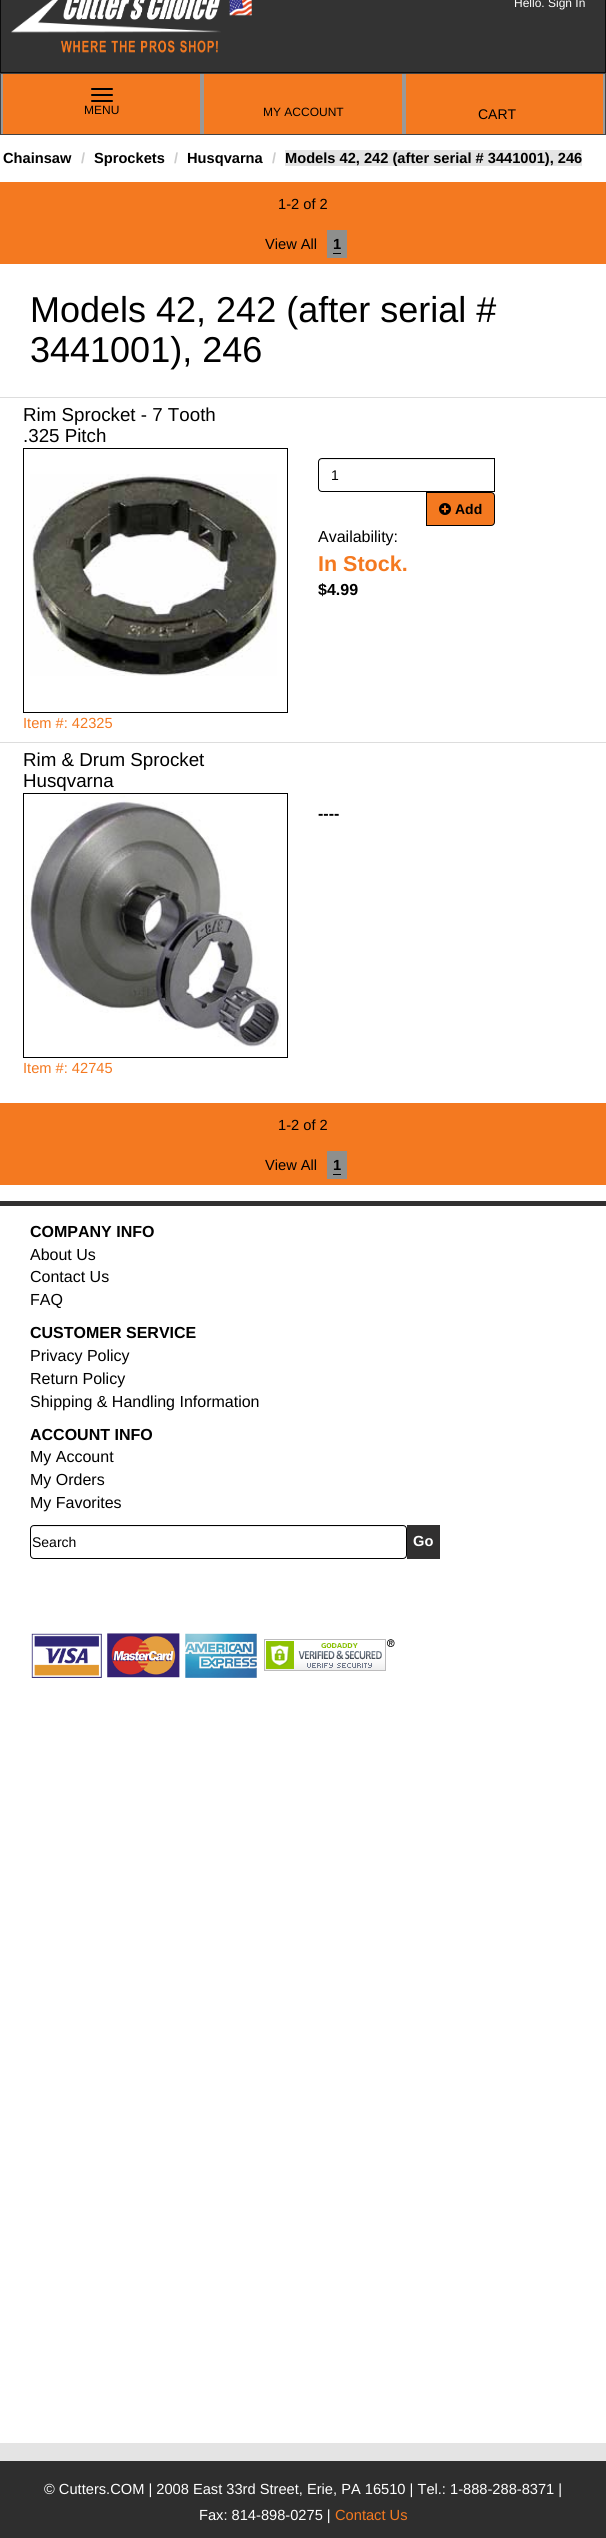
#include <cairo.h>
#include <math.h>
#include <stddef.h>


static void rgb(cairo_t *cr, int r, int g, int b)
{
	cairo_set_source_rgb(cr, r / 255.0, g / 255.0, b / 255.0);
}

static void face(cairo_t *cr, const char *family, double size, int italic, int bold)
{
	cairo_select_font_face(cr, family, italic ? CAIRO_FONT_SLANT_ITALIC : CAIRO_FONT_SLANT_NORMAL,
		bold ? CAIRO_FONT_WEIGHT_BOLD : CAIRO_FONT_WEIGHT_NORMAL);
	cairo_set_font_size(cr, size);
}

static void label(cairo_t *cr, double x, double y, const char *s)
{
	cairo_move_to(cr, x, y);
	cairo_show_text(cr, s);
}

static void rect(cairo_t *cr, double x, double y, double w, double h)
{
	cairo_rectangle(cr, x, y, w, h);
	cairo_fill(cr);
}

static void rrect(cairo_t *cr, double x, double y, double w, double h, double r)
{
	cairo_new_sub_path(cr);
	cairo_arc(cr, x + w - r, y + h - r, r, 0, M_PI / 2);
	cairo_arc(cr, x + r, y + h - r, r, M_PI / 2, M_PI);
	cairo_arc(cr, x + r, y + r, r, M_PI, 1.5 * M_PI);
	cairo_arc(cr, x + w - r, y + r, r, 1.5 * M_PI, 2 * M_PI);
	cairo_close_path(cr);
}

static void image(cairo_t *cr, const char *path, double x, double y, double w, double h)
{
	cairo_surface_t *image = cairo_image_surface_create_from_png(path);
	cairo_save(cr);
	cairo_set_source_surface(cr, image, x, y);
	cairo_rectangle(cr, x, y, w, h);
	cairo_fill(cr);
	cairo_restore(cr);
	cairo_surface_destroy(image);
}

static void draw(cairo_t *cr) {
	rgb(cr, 228, 228, 228);
	cairo_paint(cr);
	rgb(cr, 51, 51, 51);
	cairo_rectangle(cr, 0.5, -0.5, 605, 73);
	cairo_fill_preserve(cr);
	rgb(cr, 10, 10, 10);
	cairo_set_line_width(cr, 1);
	cairo_stroke(cr);
	image(cr, "image0.png", 11, 0, 241, 53);
	face(cr, "Liberation Sans", 12, 0, 0);
	rgb(cr, 255, 255, 255);
	label(cr, 514, 7, "Hello. Sign In");
	rgb(cr, 66, 66, 66);
	rect(cr, 0, 73, 606, 62);
	rgb(cr, 244, 121, 32);
	rect(cr, 3, 74, 600, 60);
	rgb(cr, 153, 153, 153);
	rect(cr, 200, 74, 4, 60);
	rect(cr, 1, 74, 2, 60);
	rgb(cr, 0, 0, 0);
	rrect(cr, 91, 88, 22, 2, 1);
	cairo_fill(cr);
	rrect(cr, 91, 94, 22, 2, 1);
	cairo_fill(cr);
	rrect(cr, 91, 100, 22, 2, 1);
	cairo_fill(cr);
	label(cr, 84, 114, "MENU");
	rgb(cr, 153, 153, 153);
	rect(cr, 402, 74, 4, 60);
	rgb(cr, 0, 0, 0);
	label(cr, 263, 116, "MY ACCOUNT");
	rgb(cr, 153, 153, 153);
	rect(cr, 603, 74, 2, 60);
	face(cr, "Liberation Sans", 14, 0, 0);
	rgb(cr, 0, 0, 0);
	label(cr, 478, 119, "CART");
	rgb(cr, 255, 255, 255);
	rect(cr, 0, 135, 606, 2308);
	face(cr, "Liberation Sans", 14.65, 0, 1);
	rgb(cr, 0, 0, 0);
	label(cr, 3, 163, "Chainsaw");
	rgb(cr, 204, 204, 204);
	label(cr, 81, 163, "/");
	rgb(cr, 0, 0, 0);
	label(cr, 94, 163, "Sprockets");
	rgb(cr, 204, 204, 204);
	label(cr, 174, 163, "/");
	rgb(cr, 0, 0, 0);
	label(cr, 187, 163, "Husqvarna");
	rgb(cr, 204, 204, 204);
	label(cr, 272, 163, "/");
	rgb(cr, 228, 228, 228);
	rect(cr, 285, 150, 297, 16);
	rgb(cr, 0, 0, 0);
	label(cr, 285, 163, "Models 42, 242 (after serial # 3441001), 246");
	rgb(cr, 244, 121, 32);
	rect(cr, 0, 182, 606, 82);
	face(cr, "Liberation Sans", 14.65, 0, 0);
	rgb(cr, 0, 0, 0);
	label(cr, 278, 209, "1-2 of 2");
	label(cr, 265, 249, "View All");
	rgb(cr, 142, 143, 141);
	rect(cr, 327, 230, 20, 28);
	face(cr, "Liberation Sans", 14.65, 0, 1);
	rgb(cr, 0, 0, 0);
	label(cr, 333, 249, "1");
	rect(cr, 333, 253, 8, 1);
	face(cr, "Liberation Sans", 36, 0, 0);
	label(cr, 30, 322, "Models 42, 242 (after serial #");
	label(cr, 30, 362, "3441001), 246");
	rgb(cr, 221, 221, 221);
	rect(cr, 0, 397, 606, 1);
	face(cr, "Liberation Sans", 18.75, 0, 0);
	rgb(cr, 0, 0, 0);
	label(cr, 23, 421, "Rim Sprocket - 7 Tooth");
	label(cr, 23, 442, ".325 Pitch");
	rgb(cr, 236, 236, 236);
	cairo_new_path(cr);
	cairo_move_to(cr, 322, 460);
	cairo_line_to(cr, 494, 460);
	cairo_line_to(cr, 494, 459);
	cairo_line_to(cr, 321, 459);
	cairo_curve_to(cr, 319, 460, 319, 461, 319, 463);
	cairo_curve_to(cr, 319, 461, 320, 460, 322, 460);
	cairo_close_path(cr);
	cairo_fill(cr);
	cairo_new_path(cr);
	cairo_move_to(cr, 322, 458.5);
	cairo_line_to(cr, 494.5, 458.5);
	cairo_line_to(cr, 494.5, 491.5);
	cairo_line_to(cr, 322, 491.5);
	cairo_curve_to(cr, 320, 491.5, 318.5, 490, 318.5, 488);
	cairo_line_to(cr, 318.5, 462);
	cairo_curve_to(cr, 318.5, 460, 320, 458.5, 322, 458.5);
	cairo_close_path(cr);
	rgb(cr, 0, 0, 0);
	cairo_stroke(cr);
	face(cr, "Liberation Sans", 14, 0, 0);
	label(cr, 331, 480, "1");
	rgb(cr, 244, 121, 32);
	cairo_new_path(cr);
	cairo_move_to(cr, 426.5, 492.5);
	cairo_line_to(cr, 491, 492.5);
	cairo_curve_to(cr, 493, 492.5, 494.5, 494, 494.5, 496);
	cairo_line_to(cr, 494.5, 522);
	cairo_curve_to(cr, 494.5, 524, 493, 525.5, 491, 525.5);
	cairo_line_to(cr, 426.5, 525.5);
	cairo_close_path(cr);
	cairo_fill_preserve(cr);
	rgb(cr, 0, 0, 0);
	cairo_stroke(cr);
	image(cr, "image1.png", 439, 503, 12, 12);
	face(cr, "Liberation Sans", 14, 0, 1);
	label(cr, 455, 514, "Add");
	face(cr, "Liberation Sans", 16, 0, 0);
	label(cr, 318, 542, "Availability:");
	face(cr, "Liberation Sans", 21.5, 0, 1);
	rgb(cr, 244, 121, 32);
	label(cr, 318, 571, "In Stock.");
	face(cr, "Liberation Sans", 16, 0, 1);
	rgb(cr, 0, 0, 0);
	label(cr, 318, 595, "$4.99");
	cairo_rectangle(cr, 23.5, 448.5, 264, 264);
	cairo_stroke(cr);
	image(cr, "image2.png", 30, 474, 247, 202);
	face(cr, "Liberation Sans", 14.65, 0, 0);
	rgb(cr, 244, 121, 32);
	label(cr, 23, 728, "Item #: 42325");
	rgb(cr, 221, 221, 221);
	rect(cr, 0, 742, 606, 1);
	face(cr, "Liberation Sans", 18.75, 0, 0);
	rgb(cr, 0, 0, 0);
	label(cr, 23, 766, "Rim & Drum Sprocket");
	label(cr, 23, 787, "Husqvarna");
	face(cr, "Liberation Sans", 16, 0, 1);
	label(cr, 318, 819, "----");
	cairo_rectangle(cr, 23.5, 793.5, 264, 264);
	cairo_stroke(cr);
	image(cr, "image3.png", 24, 794, 257, 253);
	face(cr, "Liberation Sans", 14.65, 0, 0);
	rgb(cr, 244, 121, 32);
	label(cr, 23, 1073, "Item #: 42745");
	rect(cr, 0, 1103, 606, 82);
	rgb(cr, 0, 0, 0);
	label(cr, 278, 1130, "1-2 of 2");
	label(cr, 265, 1170, "View All");
	rgb(cr, 142, 143, 141);
	rect(cr, 327, 1151, 20, 28);
	face(cr, "Liberation Sans", 14.65, 0, 1);
	rgb(cr, 0, 0, 0);
	label(cr, 333, 1170, "1");
	rect(cr, 333, 1174, 8, 1);
	rgb(cr, 49, 48, 48);
	rect(cr, 0, 1201, 606, 5);
	face(cr, "Liberation Sans", 16, 0, 1);
	rgb(cr, 0, 0, 0);
	label(cr, 30, 1237, "COMPANY INFO");
	face(cr, "Liberation Sans", 16, 0, 0);
	label(cr, 30, 1260, "About Us");
	label(cr, 30, 1282, "Contact Us");
	label(cr, 30, 1305, "FAQ");
	face(cr, "Liberation Sans", 16, 0, 1);
	label(cr, 30, 1338, "CUSTOMER SERVICE");
	face(cr, "Liberation Sans", 16, 0, 0);
	label(cr, 30, 1361, "Privacy Policy");
	label(cr, 30, 1384, "Return Policy");
	label(cr, 30, 1407, "Shipping & Handling Information");
	face(cr, "Liberation Sans", 16, 0, 1);
	label(cr, 30, 1440, "ACCOUNT INFO");
	face(cr, "Liberation Sans", 16, 0, 0);
	label(cr, 30, 1462, "My Account");
	label(cr, 30, 1485, "My Orders");
	label(cr, 30, 1508, "My Favorites");
	rgb(cr, 236, 236, 236);
	cairo_new_path(cr);
	cairo_move_to(cr, 34, 1527);
	cairo_line_to(cr, 403, 1527);
	cairo_curve_to(cr, 405, 1527, 406, 1528, 406, 1530);
	cairo_curve_to(cr, 406, 1528, 405, 1526, 403, 1526);
	cairo_line_to(cr, 34, 1526);
	cairo_line_to(cr, 32, 1527);
	cairo_line_to(cr, 31, 1530);
	cairo_curve_to(cr, 31, 1528, 32, 1527, 34, 1527);
	cairo_close_path(cr);
	cairo_fill(cr);
	rrect(cr, 30.5, 1525.5, 376, 33, 3.5);
	rgb(cr, 0, 0, 0);
	cairo_stroke(cr);
	face(cr, "Liberation Sans", 14, 0, 0);
	label(cr, 32, 1547, "Search");
	rgb(cr, 49, 48, 48);
	rect(cr, 407, 1525, 33, 34);
	face(cr, "Liberation Sans", 14.65, 0, 1);
	rgb(cr, 255, 255, 255);
	label(cr, 413, 1546, "Go");
	image(cr, "image4.png", 31, 1633, 226, 45);
	image(cr, "image5.png", 264, 1639, 131, 32);
	rgb(cr, 46, 46, 46);
	rect(cr, 0, 2461, 606, 77);
	face(cr, "Liberation Sans", 14.65, 0, 0);
	rgb(cr, 255, 255, 255);
	label(cr, 44, 2494, "© Cutters.COM | 2008 East 33rd Street, Erie, PA 16510 | Tel.: 1-888-288-8371 |");
	label(cr, 199, 2520, "Fax: 814-898-0275 |");
	rgb(cr, 244, 121, 32);
	label(cr, 335, 2520, "Contact Us");
}

int main(void) {
	cairo_surface_t *surface = cairo_image_surface_create(CAIRO_FORMAT_RGB24, 606, 2538);
	cairo_t *cr = cairo_create(surface);
	cairo_font_options_t *options = cairo_font_options_create();
	cairo_font_options_set_hint_metrics(options, CAIRO_HINT_METRICS_OFF);
	cairo_font_options_set_hint_style(options, CAIRO_HINT_STYLE_NONE);
	cairo_set_font_options(cr, options);
	cairo_set_miter_limit(cr, 4);
	draw(cr);
	cairo_surface_write_to_png(surface, "render.png");
	cairo_font_options_destroy(options);
	cairo_destroy(cr);
	cairo_surface_destroy(surface);
	return 0;
}
